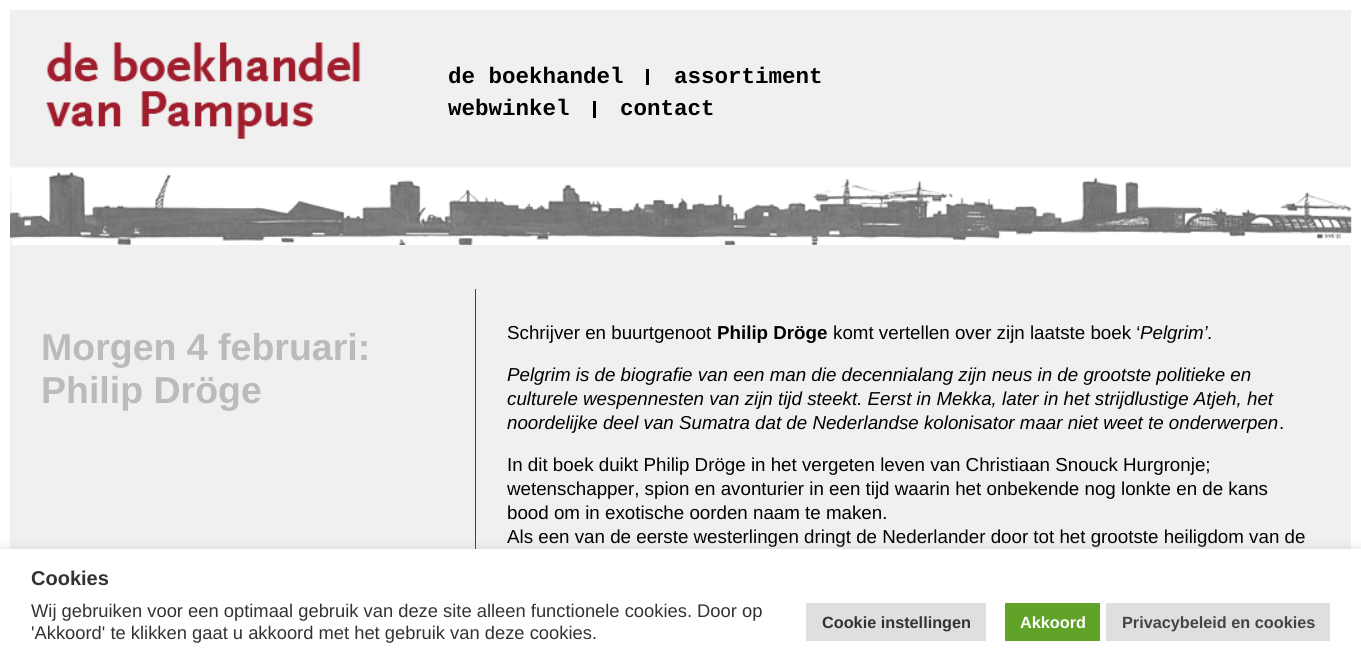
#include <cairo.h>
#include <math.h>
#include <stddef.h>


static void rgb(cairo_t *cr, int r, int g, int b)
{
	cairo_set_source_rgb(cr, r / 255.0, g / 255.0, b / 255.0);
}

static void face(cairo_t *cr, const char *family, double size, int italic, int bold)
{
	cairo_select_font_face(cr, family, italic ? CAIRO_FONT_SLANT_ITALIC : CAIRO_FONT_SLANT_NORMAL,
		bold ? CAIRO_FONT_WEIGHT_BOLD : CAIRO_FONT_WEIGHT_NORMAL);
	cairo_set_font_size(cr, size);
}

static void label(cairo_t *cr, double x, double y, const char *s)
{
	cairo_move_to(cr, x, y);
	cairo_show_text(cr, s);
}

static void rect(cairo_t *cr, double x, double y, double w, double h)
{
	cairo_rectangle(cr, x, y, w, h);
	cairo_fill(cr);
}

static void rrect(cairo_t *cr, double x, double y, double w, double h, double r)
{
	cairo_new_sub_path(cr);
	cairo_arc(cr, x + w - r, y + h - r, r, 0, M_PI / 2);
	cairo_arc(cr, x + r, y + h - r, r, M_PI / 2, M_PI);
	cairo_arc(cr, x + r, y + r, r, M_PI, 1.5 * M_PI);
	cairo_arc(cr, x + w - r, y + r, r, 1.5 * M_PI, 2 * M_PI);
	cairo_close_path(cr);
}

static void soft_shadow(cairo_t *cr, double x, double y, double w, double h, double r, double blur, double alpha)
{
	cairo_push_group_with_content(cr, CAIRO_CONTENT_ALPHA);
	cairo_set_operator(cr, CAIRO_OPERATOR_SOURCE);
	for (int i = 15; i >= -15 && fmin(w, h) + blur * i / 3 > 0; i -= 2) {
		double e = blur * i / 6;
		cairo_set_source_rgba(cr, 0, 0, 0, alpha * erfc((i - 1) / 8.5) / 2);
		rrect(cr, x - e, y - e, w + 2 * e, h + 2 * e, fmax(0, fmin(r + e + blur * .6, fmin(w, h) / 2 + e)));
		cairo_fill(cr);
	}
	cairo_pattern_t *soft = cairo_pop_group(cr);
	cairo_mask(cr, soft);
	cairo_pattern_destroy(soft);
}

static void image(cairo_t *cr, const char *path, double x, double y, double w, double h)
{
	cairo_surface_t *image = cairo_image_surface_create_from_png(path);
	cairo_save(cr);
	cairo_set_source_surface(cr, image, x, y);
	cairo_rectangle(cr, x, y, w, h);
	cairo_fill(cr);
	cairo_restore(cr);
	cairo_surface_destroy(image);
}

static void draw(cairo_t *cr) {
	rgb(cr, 255, 255, 255);
	cairo_paint(cr);
	rgb(cr, 240, 240, 240);
	rect(cr, 10, 10, 1341, 539);
	image(cr, "image0.png", 46, 42, 315, 97);
	face(cr, "Liberation Mono", 22.5, 0, 1);
	rgb(cr, 0, 0, 0);
	label(cr, 448, 83, "de boekhandel");
	rect(cr, 646, 69, 3, 16);
	label(cr, 674, 83, "assortiment");
	label(cr, 448, 115, "webwinkel");
	rect(cr, 593, 101, 3, 17);
	label(cr, 620, 115, "contact");
	image(cr, "image1.png", 10, 167, 1342, 78);
	face(cr, "Liberation Sans", 37.5, 0, 1);
	rgb(cr, 187, 187, 187);
	label(cr, 41, 360, "Morgen 4 februari:");
	label(cr, 41, 403, "Philip Dröge");
	rgb(cr, 180, 11, 37);
	rect(cr, 475, 289, 1, 260);
	face(cr, "Liberation Sans", 18.75, 0, 0);
	rgb(cr, 0, 0, 0);
	label(cr, 507, 339, "Schrijver en buurtgenoot");
	face(cr, "Liberation Sans", 18.75, 0, 1);
	label(cr, 717, 339, "Philip Dröge");
	face(cr, "Liberation Sans", 18.75, 0, 0);
	label(cr, 833, 339, "komt vertellen over zijn laatste boek ‘");
	face(cr, "Liberation Sans", 18.75, 1, 0);
	label(cr, 1140, 339, "Pelgrim’.");
	label(cr, 507, 381, "Pelgrim is de biografie van een man die decennialang zijn neus in de grootste politieke en");
	label(cr, 507, 405, "culturele wespennesten van zijn tijd steekt. Eerst in Mekka, later in het strijdlustige Atjeh, het");
	label(cr, 507, 429, "noordelijke deel van Sumatra dat de Nederlandse kolonisator maar niet weet te onderwerpen");
	face(cr, "Liberation Sans", 18.75, 0, 0);
	label(cr, 1279, 429, ".");
	label(cr, 507, 471, "In dit boek duikt Philip Dröge in het vergeten leven van Christiaan Snouck Hurgronje;");
	label(cr, 507, 495, "wetenschapper, spion en avonturier in een tijd waarin het onbekende nog lonkte en de kans");
	label(cr, 507, 519, "bood om in exotische oorden naam te maken.");
	label(cr, 507, 543, "Als een van de eerste westerlingen dringt de Nederlander door tot het grootste heiligdom van de");
	rgb(cr, 172, 171, 171);
	soft_shadow(cr, 0, 548, 1361, 116, 0, 6, 0.3);
	rgb(cr, 255, 255, 255);
	rect(cr, 0, 549, 1361, 115);
	face(cr, "Liberation Sans", 20, 0, 1);
	rgb(cr, 51, 51, 51);
	label(cr, 31, 585, "Cookies");
	face(cr, "Liberation Sans", 18.35, 0, 0);
	label(cr, 31, 617, "Wij gebruiken voor een optimaal gebruik van deze site alleen functionele cookies. Door op");
	label(cr, 31, 639, "'Akkoord' te klikken gaat u akkoord met het gebruik van deze cookies.");
	rgb(cr, 222, 223, 224);
	rect(cr, 806, 603, 180, 38);
	face(cr, "Liberation Sans", 16.25, 0, 1);
	rgb(cr, 51, 51, 51);
	label(cr, 822, 628, "Cookie instellingen");
	rgb(cr, 97, 162, 41);
	rect(cr, 1005, 603, 95, 38);
	rgb(cr, 255, 255, 255);
	label(cr, 1020, 628, "Akkoord");
	rgb(cr, 222, 223, 224);
	rect(cr, 1106, 603, 224, 38);
	rgb(cr, 68, 68, 68);
	label(cr, 1122, 628, "Privacybeleid en cookies");
}

int main(void) {
	cairo_surface_t *surface = cairo_image_surface_create(CAIRO_FORMAT_RGB24, 1361, 664);
	cairo_t *cr = cairo_create(surface);
	cairo_font_options_t *options = cairo_font_options_create();
	cairo_font_options_set_hint_metrics(options, CAIRO_HINT_METRICS_OFF);
	cairo_font_options_set_hint_style(options, CAIRO_HINT_STYLE_NONE);
	cairo_set_font_options(cr, options);
	cairo_set_miter_limit(cr, 4);
	draw(cr);
	cairo_surface_write_to_png(surface, "render.png");
	cairo_font_options_destroy(options);
	cairo_destroy(cr);
	cairo_surface_destroy(surface);
	return 0;
}
